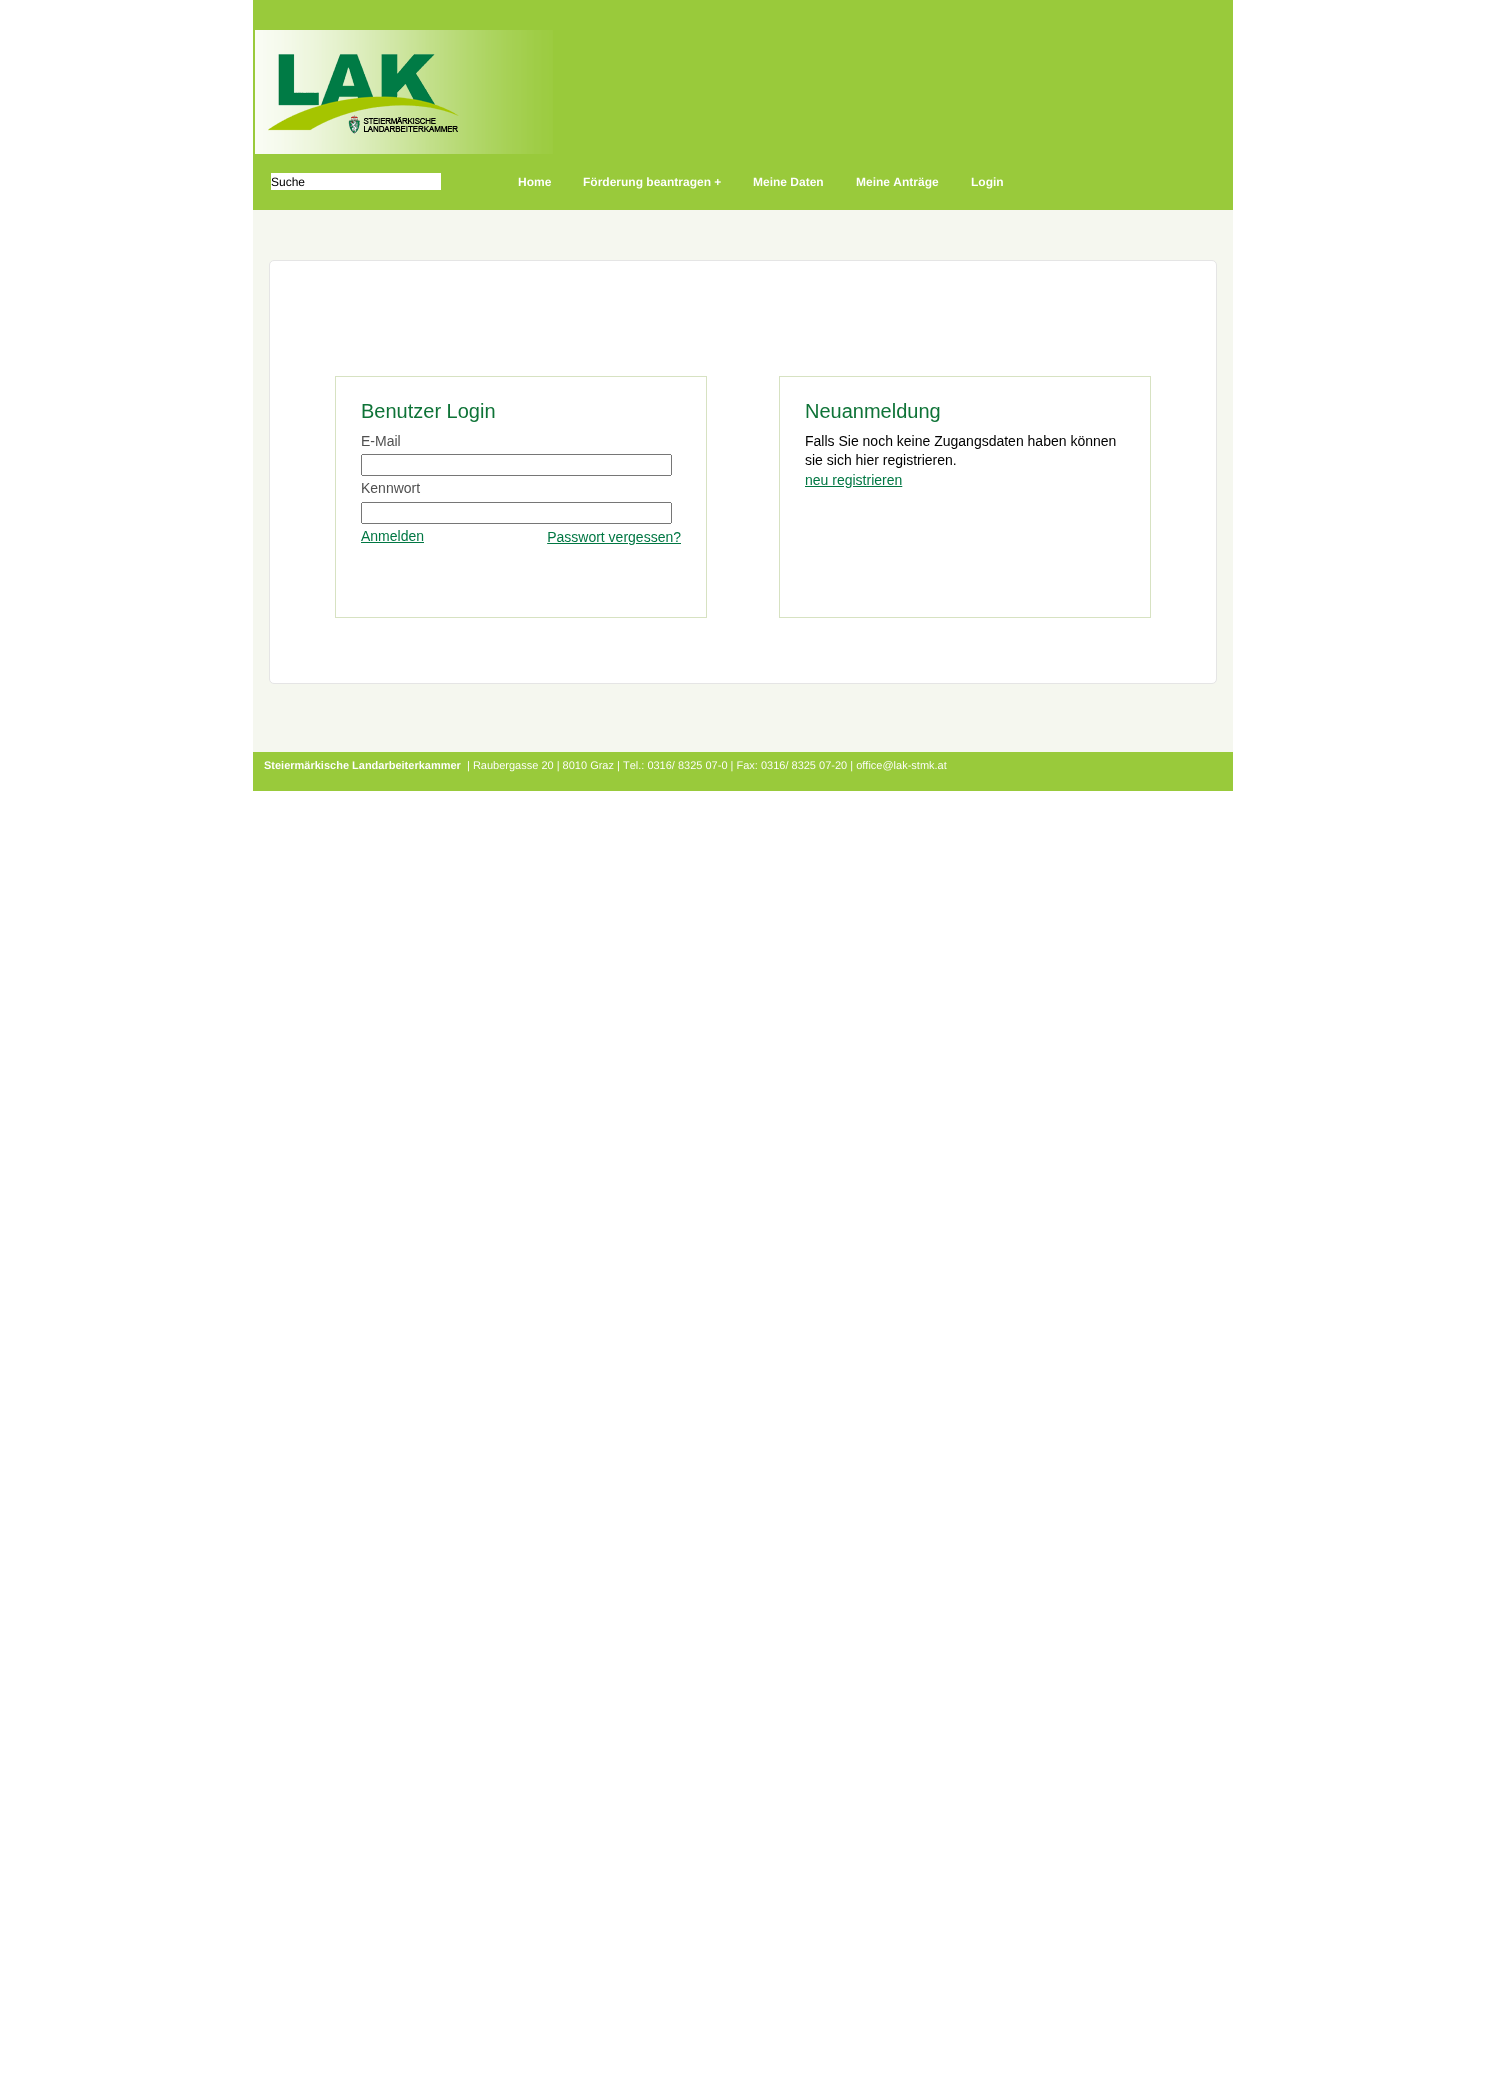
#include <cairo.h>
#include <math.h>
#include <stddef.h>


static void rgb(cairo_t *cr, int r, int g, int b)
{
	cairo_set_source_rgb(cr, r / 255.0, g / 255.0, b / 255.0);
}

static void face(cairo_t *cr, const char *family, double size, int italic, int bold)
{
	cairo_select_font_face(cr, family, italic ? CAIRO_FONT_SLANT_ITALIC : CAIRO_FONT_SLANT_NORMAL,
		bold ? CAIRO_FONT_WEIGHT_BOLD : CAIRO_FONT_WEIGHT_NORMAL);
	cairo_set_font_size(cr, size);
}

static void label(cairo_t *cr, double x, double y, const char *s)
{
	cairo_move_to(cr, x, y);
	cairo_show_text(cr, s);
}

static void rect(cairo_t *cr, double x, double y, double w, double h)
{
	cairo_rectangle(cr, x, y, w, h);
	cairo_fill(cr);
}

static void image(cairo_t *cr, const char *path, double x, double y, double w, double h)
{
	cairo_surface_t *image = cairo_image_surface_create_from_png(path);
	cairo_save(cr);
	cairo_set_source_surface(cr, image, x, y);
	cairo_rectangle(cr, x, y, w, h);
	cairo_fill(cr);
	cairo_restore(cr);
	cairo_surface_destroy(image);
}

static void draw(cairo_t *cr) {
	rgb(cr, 255, 255, 255);
	cairo_paint(cr);
	rgb(cr, 153, 202, 59);
	rect(cr, 253, 0, 980, 210);
	image(cr, "image0.png", 255, 30, 298, 124);
	rgb(cr, 255, 255, 255);
	rect(cr, 271, 173, 170, 17);
	face(cr, "Liberation Sans", 12, 0, 0);
	rgb(cr, 0, 0, 0);
	label(cr, 271, 186, "Suche");
	face(cr, "Liberation Sans", 12, 0, 1);
	rgb(cr, 255, 255, 255);
	label(cr, 518, 186, "Home");
	label(cr, 583, 186, "Förderung beantragen +");
	label(cr, 753, 186, "Meine Daten");
	label(cr, 856, 186, "Meine Anträge");
	label(cr, 971, 186, "Login");
	image(cr, "image1.png", 253, 210, 980, 542);
	rgb(cr, 153, 202, 59);
	rect(cr, 253, 752, 980, 39);
	face(cr, "Liberation Sans", 11, 0, 1);
	rgb(cr, 255, 255, 255);
	label(cr, 264, 769, "Steiermärkische Landarbeiterkammer");
	face(cr, "Liberation Sans", 11, 0, 0);
	label(cr, 467, 769, "| Raubergasse 20 | 8010 Graz | Tel.: 0316/ 8325 07-0 | Fax: 0316/ 8325 07-20 | office@lak-stmk.at");
}

int main(void) {
	cairo_surface_t *surface = cairo_image_surface_create(CAIRO_FORMAT_RGB24, 1485, 2080);
	cairo_t *cr = cairo_create(surface);
	cairo_font_options_t *options = cairo_font_options_create();
	cairo_font_options_set_hint_metrics(options, CAIRO_HINT_METRICS_OFF);
	cairo_font_options_set_hint_style(options, CAIRO_HINT_STYLE_NONE);
	cairo_set_font_options(cr, options);
	cairo_set_miter_limit(cr, 4);
	draw(cr);
	cairo_surface_write_to_png(surface, "render.png");
	cairo_font_options_destroy(options);
	cairo_destroy(cr);
	cairo_surface_destroy(surface);
	return 0;
}
